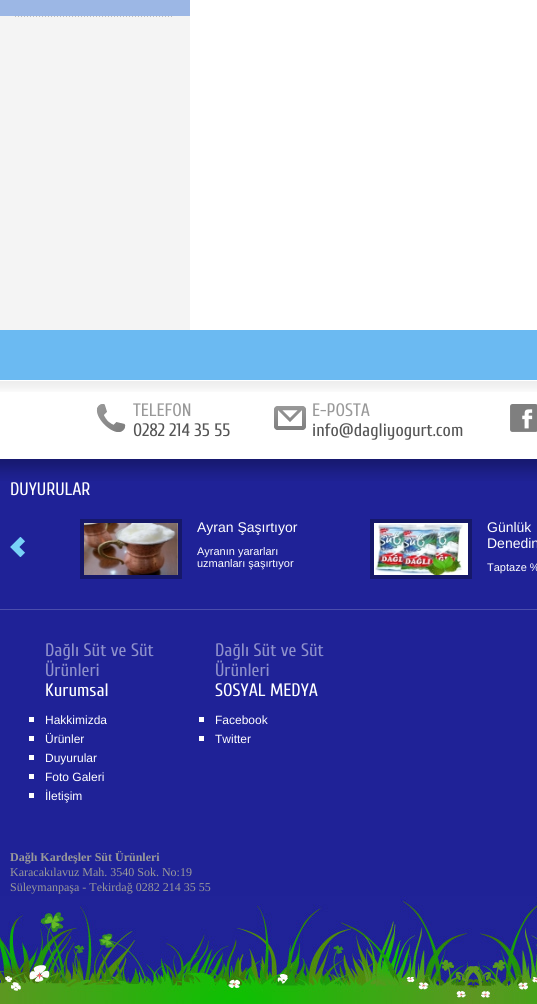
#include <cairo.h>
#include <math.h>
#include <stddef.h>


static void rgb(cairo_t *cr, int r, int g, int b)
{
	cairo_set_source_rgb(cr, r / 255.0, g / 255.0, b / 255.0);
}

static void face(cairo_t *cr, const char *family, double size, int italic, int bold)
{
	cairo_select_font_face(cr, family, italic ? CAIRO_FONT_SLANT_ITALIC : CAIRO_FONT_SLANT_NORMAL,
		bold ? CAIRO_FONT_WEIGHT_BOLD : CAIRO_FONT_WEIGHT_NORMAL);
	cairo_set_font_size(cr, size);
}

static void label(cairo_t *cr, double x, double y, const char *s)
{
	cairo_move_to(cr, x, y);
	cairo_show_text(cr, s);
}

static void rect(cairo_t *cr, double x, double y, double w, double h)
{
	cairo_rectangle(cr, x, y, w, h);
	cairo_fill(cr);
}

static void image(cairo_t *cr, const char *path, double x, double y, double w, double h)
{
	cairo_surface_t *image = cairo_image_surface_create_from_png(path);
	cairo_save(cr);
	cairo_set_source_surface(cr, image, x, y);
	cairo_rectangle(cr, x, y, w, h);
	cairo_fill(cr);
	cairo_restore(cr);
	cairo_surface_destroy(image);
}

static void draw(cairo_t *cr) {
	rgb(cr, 255, 255, 255);
	cairo_paint(cr);
	rgb(cr, 107, 186, 242);
	rect(cr, 0, 330, 537, 50);
	rgb(cr, 244, 244, 244);
	rect(cr, 0, 16, 190, 314);
	rgb(cr, 156, 183, 229);
	rect(cr, 0, 0, 190, 16);
	image(cr, "image0.png", 15, 16, 157, 1);
	image(cr, "image1.png", 0, 381, 537, 11);
	image(cr, "image2.png", 96, 404, 30, 28);
	face(cr, "Cuprum", 18, 0, 0);
	rgb(cr, 153, 153, 153);
	label(cr, 133, 416, "TELEFON");
	rgb(cr, 85, 85, 85);
	label(cr, 133, 436, "0282 214 35 55");
	image(cr, "image3.png", 274, 406, 32, 24);
	rgb(cr, 153, 153, 153);
	label(cr, 312, 416, "E-POSTA");
	rgb(cr, 85, 85, 85);
	label(cr, 312, 436, "info@dagliyogurt.com");
	image(cr, "image4.png", 510, 404, 27, 28);
	rgb(cr, 31, 34, 151);
	rect(cr, 0, 459, 537, 437);
	image(cr, "image5.png", 0, 459, 537, 22);
	rgb(cr, 255, 255, 255);
	label(cr, 10, 495, "DUYURULAR");
	image(cr, "image6.png", 10, 537, 15, 20);
	cairo_rectangle(cr, 82, 521, 98, 56);
	rgb(cr, 22, 24, 105);
	cairo_set_line_width(cr, 4);
	cairo_stroke(cr);
	image(cr, "image7.png", 84, 523, 94, 52);
	face(cr, "Liberation Sans", 14, 0, 0);
	rgb(cr, 255, 255, 255);
	label(cr, 197, 532, "Ayran Şaşırtıyor");
	face(cr, "Liberation Sans", 11, 0, 0);
	label(cr, 197, 555, "Ayranın yararları");
	label(cr, 197, 567, "uzmanları şaşırtıyor");
	cairo_rectangle(cr, 372, 521, 98, 56);
	cairo_fill_preserve(cr);
	rgb(cr, 22, 24, 105);
	cairo_stroke(cr);
	image(cr, "image8.png", 375, 524, 88, 51);
	face(cr, "Liberation Sans", 14, 0, 0);
	rgb(cr, 255, 255, 255);
	label(cr, 487, 532, "Günlük");
	label(cr, 487, 548, "Denedin");
	face(cr, "Liberation Sans", 11, 0, 0);
	label(cr, 487, 571, "Taptaze %");
	rgb(cr, 76, 78, 172);
	rect(cr, 0, 609, 537, 1);
	face(cr, "Cuprum", 18, 0, 0);
	rgb(cr, 143, 145, 203);
	label(cr, 45, 656, "Dağlı Süt ve Süt");
	label(cr, 45, 676, "Ürünleri");
	rgb(cr, 255, 255, 255);
	label(cr, 45, 696, "Kurumsal");
	rect(cr, 29, 717, 5, 5);
	face(cr, "Liberation Sans", 12, 0, 0);
	label(cr, 45, 724, "Hakkimizda");
	rect(cr, 29, 736, 5, 5);
	label(cr, 45, 743, "Ürünler");
	rect(cr, 29, 755, 5, 5);
	label(cr, 45, 762, "Duyurular");
	rect(cr, 29, 774, 5, 5);
	label(cr, 45, 781, "Foto Galeri");
	rect(cr, 29, 793, 5, 5);
	label(cr, 45, 800, "İletişim");
	face(cr, "Cuprum", 18, 0, 0);
	rgb(cr, 143, 145, 203);
	label(cr, 215, 656, "Dağlı Süt ve Süt");
	label(cr, 215, 676, "Ürünleri");
	rgb(cr, 255, 255, 255);
	label(cr, 215, 696, "SOSYAL MEDYA");
	rect(cr, 199, 717, 5, 5);
	face(cr, "Liberation Sans", 12, 0, 0);
	label(cr, 215, 724, "Facebook");
	rect(cr, 199, 736, 5, 5);
	label(cr, 215, 743, "Twitter");
	face(cr, "Liberation Serif", 12, 0, 1);
	rgb(cr, 153, 153, 153);
	label(cr, 10, 861, "Dağlı Kardeşler Süt Ürünleri");
	face(cr, "Liberation Serif", 12, 0, 0);
	label(cr, 10, 876, "Karacakılavuz Mah. 3540 Sok. No:19");
	label(cr, 10, 891, "Süleymanpaşa - Tekirdağ 0282 214 35 55");
	image(cr, "image9.png", 0, 896, 537, 108);
}

int main(void) {
	cairo_surface_t *surface = cairo_image_surface_create(CAIRO_FORMAT_RGB24, 537, 1004);
	cairo_t *cr = cairo_create(surface);
	cairo_font_options_t *options = cairo_font_options_create();
	cairo_font_options_set_hint_metrics(options, CAIRO_HINT_METRICS_OFF);
	cairo_font_options_set_hint_style(options, CAIRO_HINT_STYLE_NONE);
	cairo_set_font_options(cr, options);
	cairo_set_miter_limit(cr, 4);
	draw(cr);
	cairo_surface_write_to_png(surface, "render.png");
	cairo_font_options_destroy(options);
	cairo_destroy(cr);
	cairo_surface_destroy(surface);
	return 0;
}
